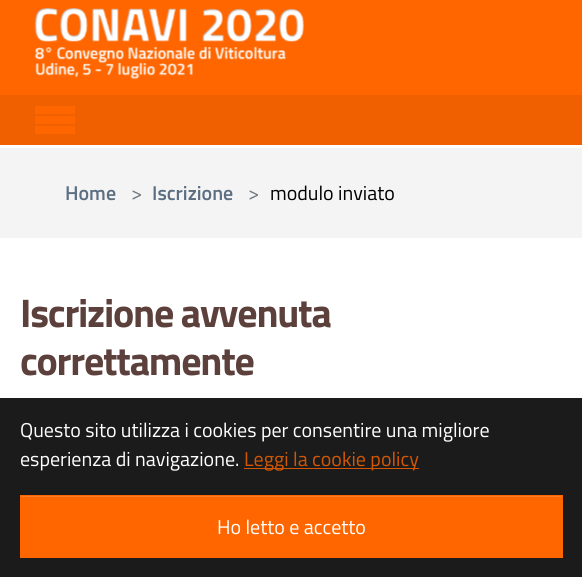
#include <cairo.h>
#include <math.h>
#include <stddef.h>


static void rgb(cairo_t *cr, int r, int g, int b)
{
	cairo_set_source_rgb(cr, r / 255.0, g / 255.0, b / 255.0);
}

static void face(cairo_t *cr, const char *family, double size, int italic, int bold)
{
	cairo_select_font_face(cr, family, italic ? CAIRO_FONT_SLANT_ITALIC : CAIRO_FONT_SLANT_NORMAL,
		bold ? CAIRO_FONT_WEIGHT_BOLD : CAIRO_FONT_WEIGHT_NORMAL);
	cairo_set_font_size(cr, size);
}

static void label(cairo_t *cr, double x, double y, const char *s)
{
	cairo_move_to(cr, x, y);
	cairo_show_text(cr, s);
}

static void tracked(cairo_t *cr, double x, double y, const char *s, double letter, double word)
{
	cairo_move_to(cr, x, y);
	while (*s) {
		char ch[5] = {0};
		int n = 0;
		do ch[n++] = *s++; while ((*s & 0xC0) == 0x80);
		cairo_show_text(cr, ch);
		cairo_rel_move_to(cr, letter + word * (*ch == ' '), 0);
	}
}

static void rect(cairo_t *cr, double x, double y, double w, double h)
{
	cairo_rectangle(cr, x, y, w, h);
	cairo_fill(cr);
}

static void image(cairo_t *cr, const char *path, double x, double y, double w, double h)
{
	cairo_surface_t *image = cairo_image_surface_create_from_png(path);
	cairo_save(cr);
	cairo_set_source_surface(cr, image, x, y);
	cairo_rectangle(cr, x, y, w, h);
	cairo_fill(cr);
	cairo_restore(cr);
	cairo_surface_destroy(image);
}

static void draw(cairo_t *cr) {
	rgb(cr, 255, 255, 255);
	cairo_paint(cr);
	rgb(cr, 240, 96, 0);
	rect(cr, 0, 95, 582, 50);
	rgb(cr, 255, 102, 0);
	rect(cr, 0, 0, 582, 95);
	image(cr, "image0.png", 34, 8, 270, 72);
	rect(cr, 35, 116, 40, 8);
	rect(cr, 35, 106, 40, 8);
	rect(cr, 35, 126, 40, 8);
	rgb(cr, 244, 244, 244);
	rect(cr, 0, 148, 582, 90);
	face(cr, "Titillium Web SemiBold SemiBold", 20, 0, 0);
	rgb(cr, 91, 111, 130);
	label(cr, 65, 200, "Home");
	face(cr, "Titillium Web", 20, 0, 0);
	rgb(cr, 108, 117, 125);
	label(cr, 131, 200, ">");
	face(cr, "Titillium Web SemiBold SemiBold", 20, 0, 0);
	rgb(cr, 91, 111, 130);
	label(cr, 152, 200, "Iscrizione");
	face(cr, "Titillium Web", 20, 0, 0);
	rgb(cr, 108, 117, 125);
	label(cr, 248, 200, ">");
	rgb(cr, 0, 0, 0);
	label(cr, 270, 200, "modulo inviato");
	face(cr, "Titillium Web", 40, 0, 1);
	rgb(cr, 92, 64, 60);
	tracked(cr, 20, 327, "Iscrizione avvenuta", -1.25, 0);
	tracked(cr, 20, 375, "correttamente", -1.25, 0);
	rgb(cr, 27, 27, 27);
	rect(cr, 0, 398, 582, 179);
	face(cr, "Titillium Web", 20, 0, 0);
	rgb(cr, 255, 255, 255);
	label(cr, 20, 437, "Questo sito utilizza i cookies per consentire una migliore");
	label(cr, 20, 466, "esperienza di navigazione.");
	rgb(cr, 209, 87, 5);
	rect(cr, 244, 468, 175, 1);
	label(cr, 244, 466, "Leggi la cookie policy");
	rgb(cr, 255, 102, 0);
	rect(cr, 20, 495, 543, 63);
	rgb(cr, 255, 125, 38);
	rect(cr, 21, 496, 540, 1);
	rgb(cr, 255, 255, 255);
	label(cr, 217, 534, "Ho letto e accetto");
}

int main(void) {
	cairo_surface_t *surface = cairo_image_surface_create(CAIRO_FORMAT_RGB24, 582, 577);
	cairo_t *cr = cairo_create(surface);
	cairo_font_options_t *options = cairo_font_options_create();
	cairo_font_options_set_hint_metrics(options, CAIRO_HINT_METRICS_OFF);
	cairo_font_options_set_hint_style(options, CAIRO_HINT_STYLE_NONE);
	cairo_set_font_options(cr, options);
	cairo_set_miter_limit(cr, 4);
	draw(cr);
	cairo_surface_write_to_png(surface, "render.png");
	cairo_font_options_destroy(options);
	cairo_destroy(cr);
	cairo_surface_destroy(surface);
	return 0;
}
